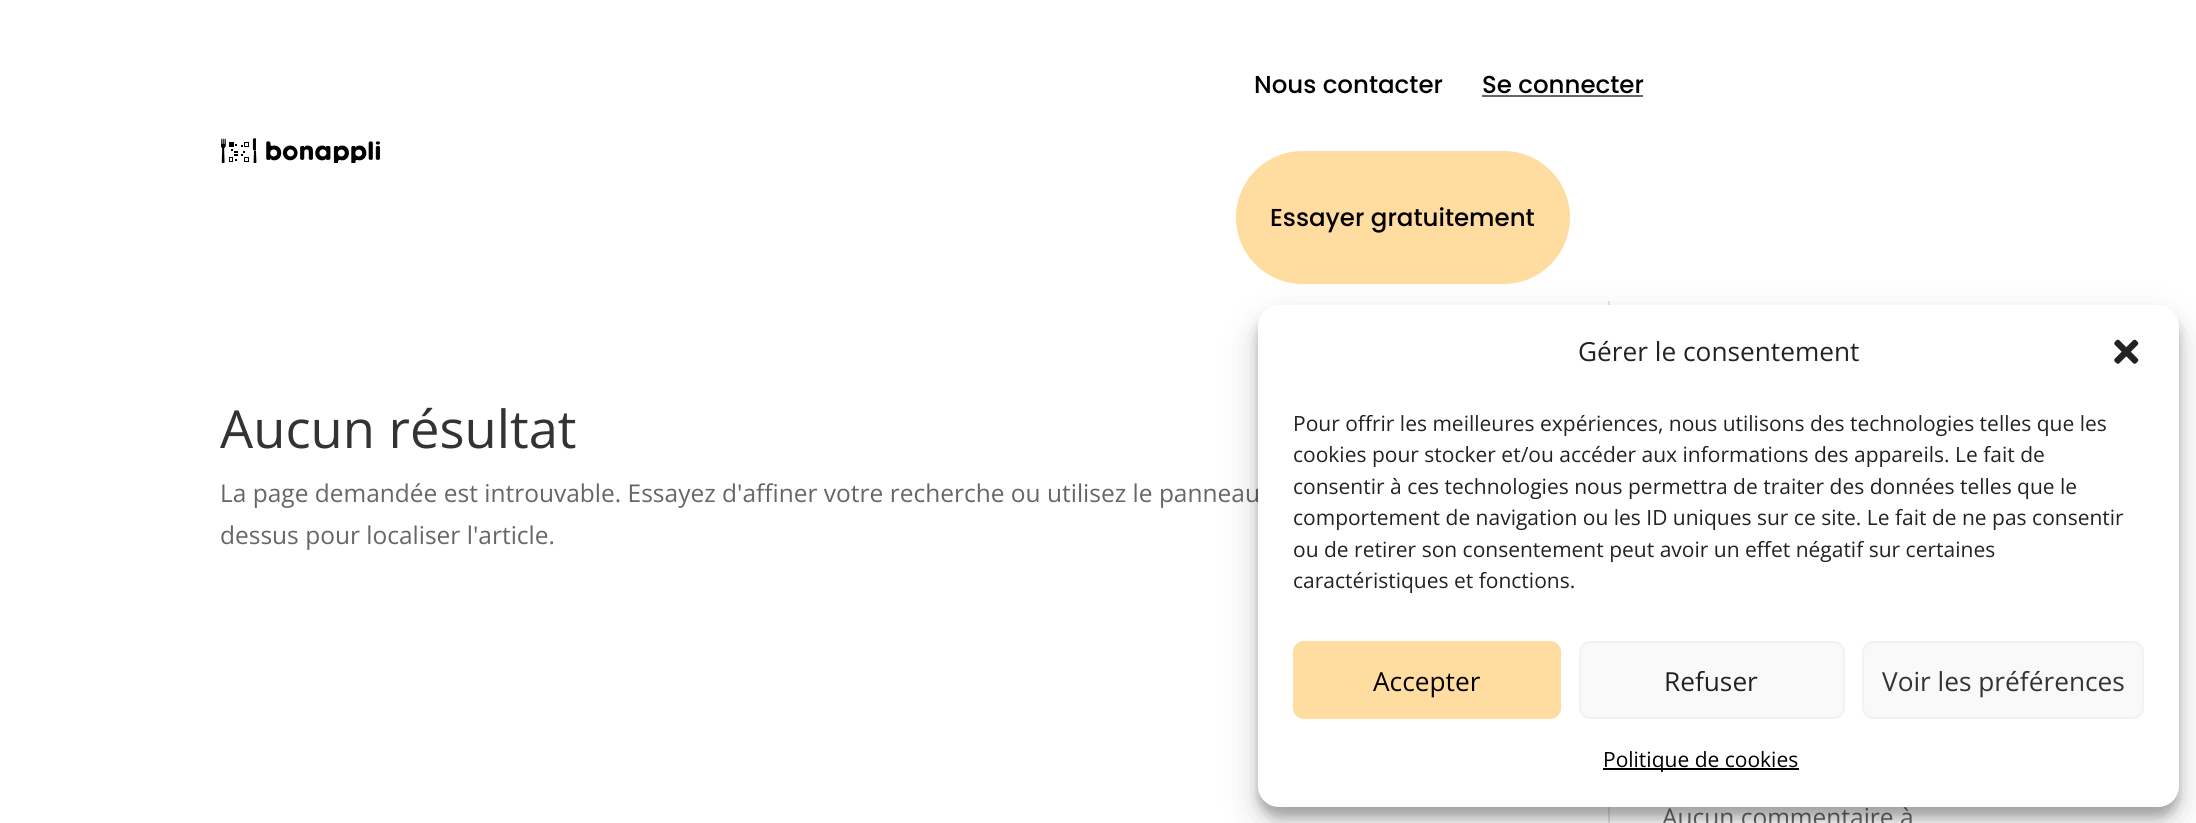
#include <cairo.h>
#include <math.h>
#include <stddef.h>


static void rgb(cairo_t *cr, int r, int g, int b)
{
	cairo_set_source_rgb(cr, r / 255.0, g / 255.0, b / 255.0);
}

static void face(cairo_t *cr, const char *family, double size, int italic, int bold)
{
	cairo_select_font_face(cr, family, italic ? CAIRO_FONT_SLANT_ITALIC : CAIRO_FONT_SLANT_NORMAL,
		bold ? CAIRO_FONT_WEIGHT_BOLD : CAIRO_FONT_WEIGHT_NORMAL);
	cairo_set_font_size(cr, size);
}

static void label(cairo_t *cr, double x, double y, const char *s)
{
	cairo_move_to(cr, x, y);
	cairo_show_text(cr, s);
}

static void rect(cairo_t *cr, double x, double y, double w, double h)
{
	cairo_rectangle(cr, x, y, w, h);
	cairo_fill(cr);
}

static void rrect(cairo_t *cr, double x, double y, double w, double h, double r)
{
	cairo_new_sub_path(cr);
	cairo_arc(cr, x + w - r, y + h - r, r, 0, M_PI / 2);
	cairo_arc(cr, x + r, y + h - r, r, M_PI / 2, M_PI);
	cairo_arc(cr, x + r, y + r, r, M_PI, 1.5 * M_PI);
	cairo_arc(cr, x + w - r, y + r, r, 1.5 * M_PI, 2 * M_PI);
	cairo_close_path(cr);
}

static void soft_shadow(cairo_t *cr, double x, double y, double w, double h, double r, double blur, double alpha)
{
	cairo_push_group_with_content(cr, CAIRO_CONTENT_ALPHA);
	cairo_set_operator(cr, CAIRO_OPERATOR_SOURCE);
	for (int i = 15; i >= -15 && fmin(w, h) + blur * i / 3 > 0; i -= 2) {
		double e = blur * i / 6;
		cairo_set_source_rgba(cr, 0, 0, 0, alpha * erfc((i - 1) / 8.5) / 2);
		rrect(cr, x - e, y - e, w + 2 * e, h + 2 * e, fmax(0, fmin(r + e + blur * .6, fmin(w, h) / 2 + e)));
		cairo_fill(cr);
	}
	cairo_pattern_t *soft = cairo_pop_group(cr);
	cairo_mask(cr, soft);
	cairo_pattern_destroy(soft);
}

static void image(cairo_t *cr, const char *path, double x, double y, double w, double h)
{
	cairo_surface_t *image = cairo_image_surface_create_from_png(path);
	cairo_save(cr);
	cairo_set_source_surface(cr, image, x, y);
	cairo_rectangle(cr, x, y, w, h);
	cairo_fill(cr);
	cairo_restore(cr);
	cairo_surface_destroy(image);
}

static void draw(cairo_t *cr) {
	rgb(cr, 255, 255, 255);
	cairo_paint(cr);
	image(cr, "image0.png", 221, 138, 159, 25);
	face(cr, "Poppins Medium", 24.5, 0, 0);
	rgb(cr, 0, 0, 0);
	label(cr, 1254, 93, "Nous contacter");
	label(cr, 1482, 93, "Se connecter");
	rgb(cr, 102, 102, 102);
	rect(cr, 1482, 95, 161, 2);
	rgb(cr, 255, 220, 160);
	rrect(cr, 1236, 151, 334, 133, 66.5);
	cairo_fill(cr);
	rgb(cr, 0, 0, 0);
	label(cr, 1270, 226, "Essayer gratuitement");
	rgb(cr, 226, 226, 226);
	rect(cr, 1608, 301, 2, 522);
	face(cr, "Open Sans", 52.5, 0, 0);
	rgb(cr, 51, 51, 51);
	label(cr, 220, 448, "Aucun résultat");
	face(cr, "Open Sans", 24.5, 0, 0);
	rgb(cr, 102, 102, 102);
	label(cr, 220, 502, "La page demandée est introuvable. Essayez d'affiner votre recherche ou utilisez le panneau");
	label(cr, 220, 544, "dessus pour localiser l'article.");
	label(cr, 1662, 826, "Aucun commentaire à");
	rgb(cr, 0, 0, 0);
	soft_shadow(cr, 1258, 315, 921, 502, 21, 5, 0.23);
	soft_shadow(cr, 1258, 322, 921, 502, 21, 17.5, 0.19);
	rgb(cr, 255, 255, 255);
	rrect(cr, 1258, 305, 921, 502, 21);
	cairo_fill(cr);
	face(cr, "Open Sans", 26.25, 0, 0);
	rgb(cr, 34, 34, 34);
	label(cr, 1578, 361, "Gérer le consentement");
	image(cr, "image1.png", 2114, 339, 25, 25);
	face(cr, "Open Sans", 21, 0, 0);
	label(cr, 1293, 431, "Pour offrir les meilleures expériences, nous utilisons des technologies telles que les");
	label(cr, 1293, 462, "cookies pour stocker et/ou accéder aux informations des appareils. Le fait de");
	label(cr, 1293, 494, "consentir à ces technologies nous permettra de traiter des données telles que le");
	label(cr, 1293, 525, "comportement de navigation ou les ID uniques sur ce site. Le fait de ne pas consentir");
	label(cr, 1293, 557, "ou de retirer son consentement peut avoir un effet négatif sur certaines");
	label(cr, 1293, 588, "caractéristiques et fonctions.");
	rgb(cr, 255, 220, 160);
	rrect(cr, 1294, 642, 266, 76, 10);
	cairo_fill_preserve(cr);
	cairo_stroke(cr);
	face(cr, "Open Sans", 26.25, 0, 0);
	rgb(cr, 0, 0, 0);
	label(cr, 1373, 691, "Accepter");
	rgb(cr, 249, 249, 249);
	rrect(cr, 1580, 642, 264, 76, 10);
	cairo_fill_preserve(cr);
	rgb(cr, 242, 242, 242);
	cairo_stroke(cr);
	rgb(cr, 34, 34, 34);
	label(cr, 1664, 691, "Refuser");
	rgb(cr, 249, 249, 249);
	rrect(cr, 1863, 642, 280, 76, 10);
	cairo_fill_preserve(cr);
	rgb(cr, 242, 242, 242);
	cairo_stroke(cr);
	rgb(cr, 51, 51, 51);
	label(cr, 1882, 691, "Voir les préférences");
	rgb(cr, 0, 0, 0);
	rect(cr, 1603, 768, 196, 2);
	face(cr, "Open Sans", 21, 0, 0);
	label(cr, 1603, 767, "Politique de cookies");
}

int main(void) {
	cairo_surface_t *surface = cairo_image_surface_create(CAIRO_FORMAT_RGB24, 2196, 823);
	cairo_t *cr = cairo_create(surface);
	cairo_font_options_t *options = cairo_font_options_create();
	cairo_font_options_set_hint_metrics(options, CAIRO_HINT_METRICS_OFF);
	cairo_font_options_set_hint_style(options, CAIRO_HINT_STYLE_NONE);
	cairo_set_font_options(cr, options);
	cairo_set_miter_limit(cr, 4);
	draw(cr);
	cairo_surface_write_to_png(surface, "render.png");
	cairo_font_options_destroy(options);
	cairo_destroy(cr);
	cairo_surface_destroy(surface);
	return 0;
}
